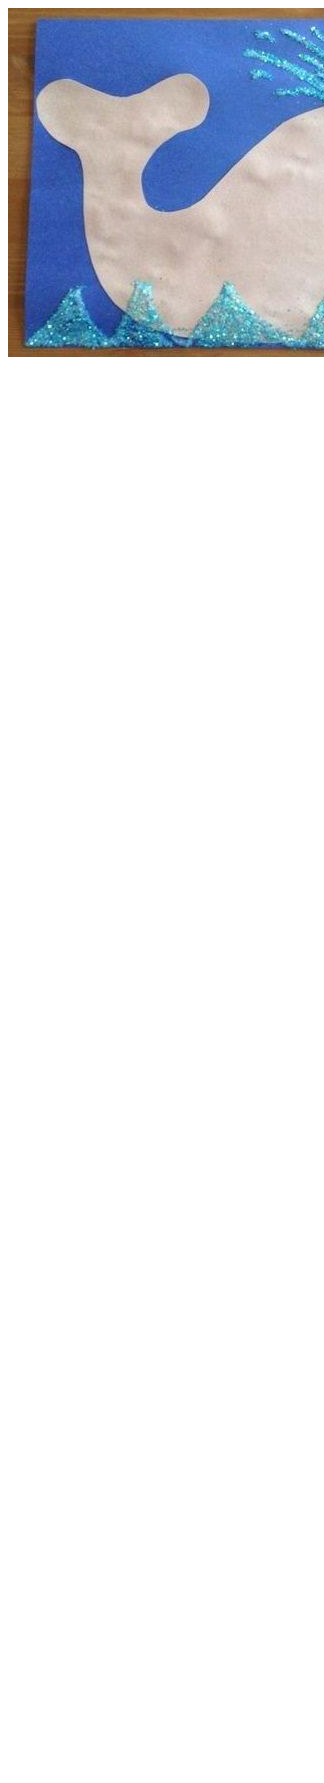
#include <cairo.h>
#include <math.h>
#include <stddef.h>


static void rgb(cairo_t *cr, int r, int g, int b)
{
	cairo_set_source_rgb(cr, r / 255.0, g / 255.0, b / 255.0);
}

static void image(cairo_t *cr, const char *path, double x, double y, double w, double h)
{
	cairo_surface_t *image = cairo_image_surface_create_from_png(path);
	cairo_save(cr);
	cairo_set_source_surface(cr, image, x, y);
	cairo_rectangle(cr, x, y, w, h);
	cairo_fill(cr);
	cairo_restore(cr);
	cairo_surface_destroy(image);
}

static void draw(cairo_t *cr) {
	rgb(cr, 255, 255, 255);
	cairo_paint(cr);
	image(cr, "image0.png", 8, 8, 316, 349);
}

int main(void) {
	cairo_surface_t *surface = cairo_image_surface_create(CAIRO_FORMAT_RGB24, 324, 1783);
	cairo_t *cr = cairo_create(surface);
	cairo_font_options_t *options = cairo_font_options_create();
	cairo_font_options_set_hint_metrics(options, CAIRO_HINT_METRICS_OFF);
	cairo_font_options_set_hint_style(options, CAIRO_HINT_STYLE_NONE);
	cairo_set_font_options(cr, options);
	cairo_set_miter_limit(cr, 4);
	draw(cr);
	cairo_surface_write_to_png(surface, "render.png");
	cairo_font_options_destroy(options);
	cairo_destroy(cr);
	cairo_surface_destroy(surface);
	return 0;
}
